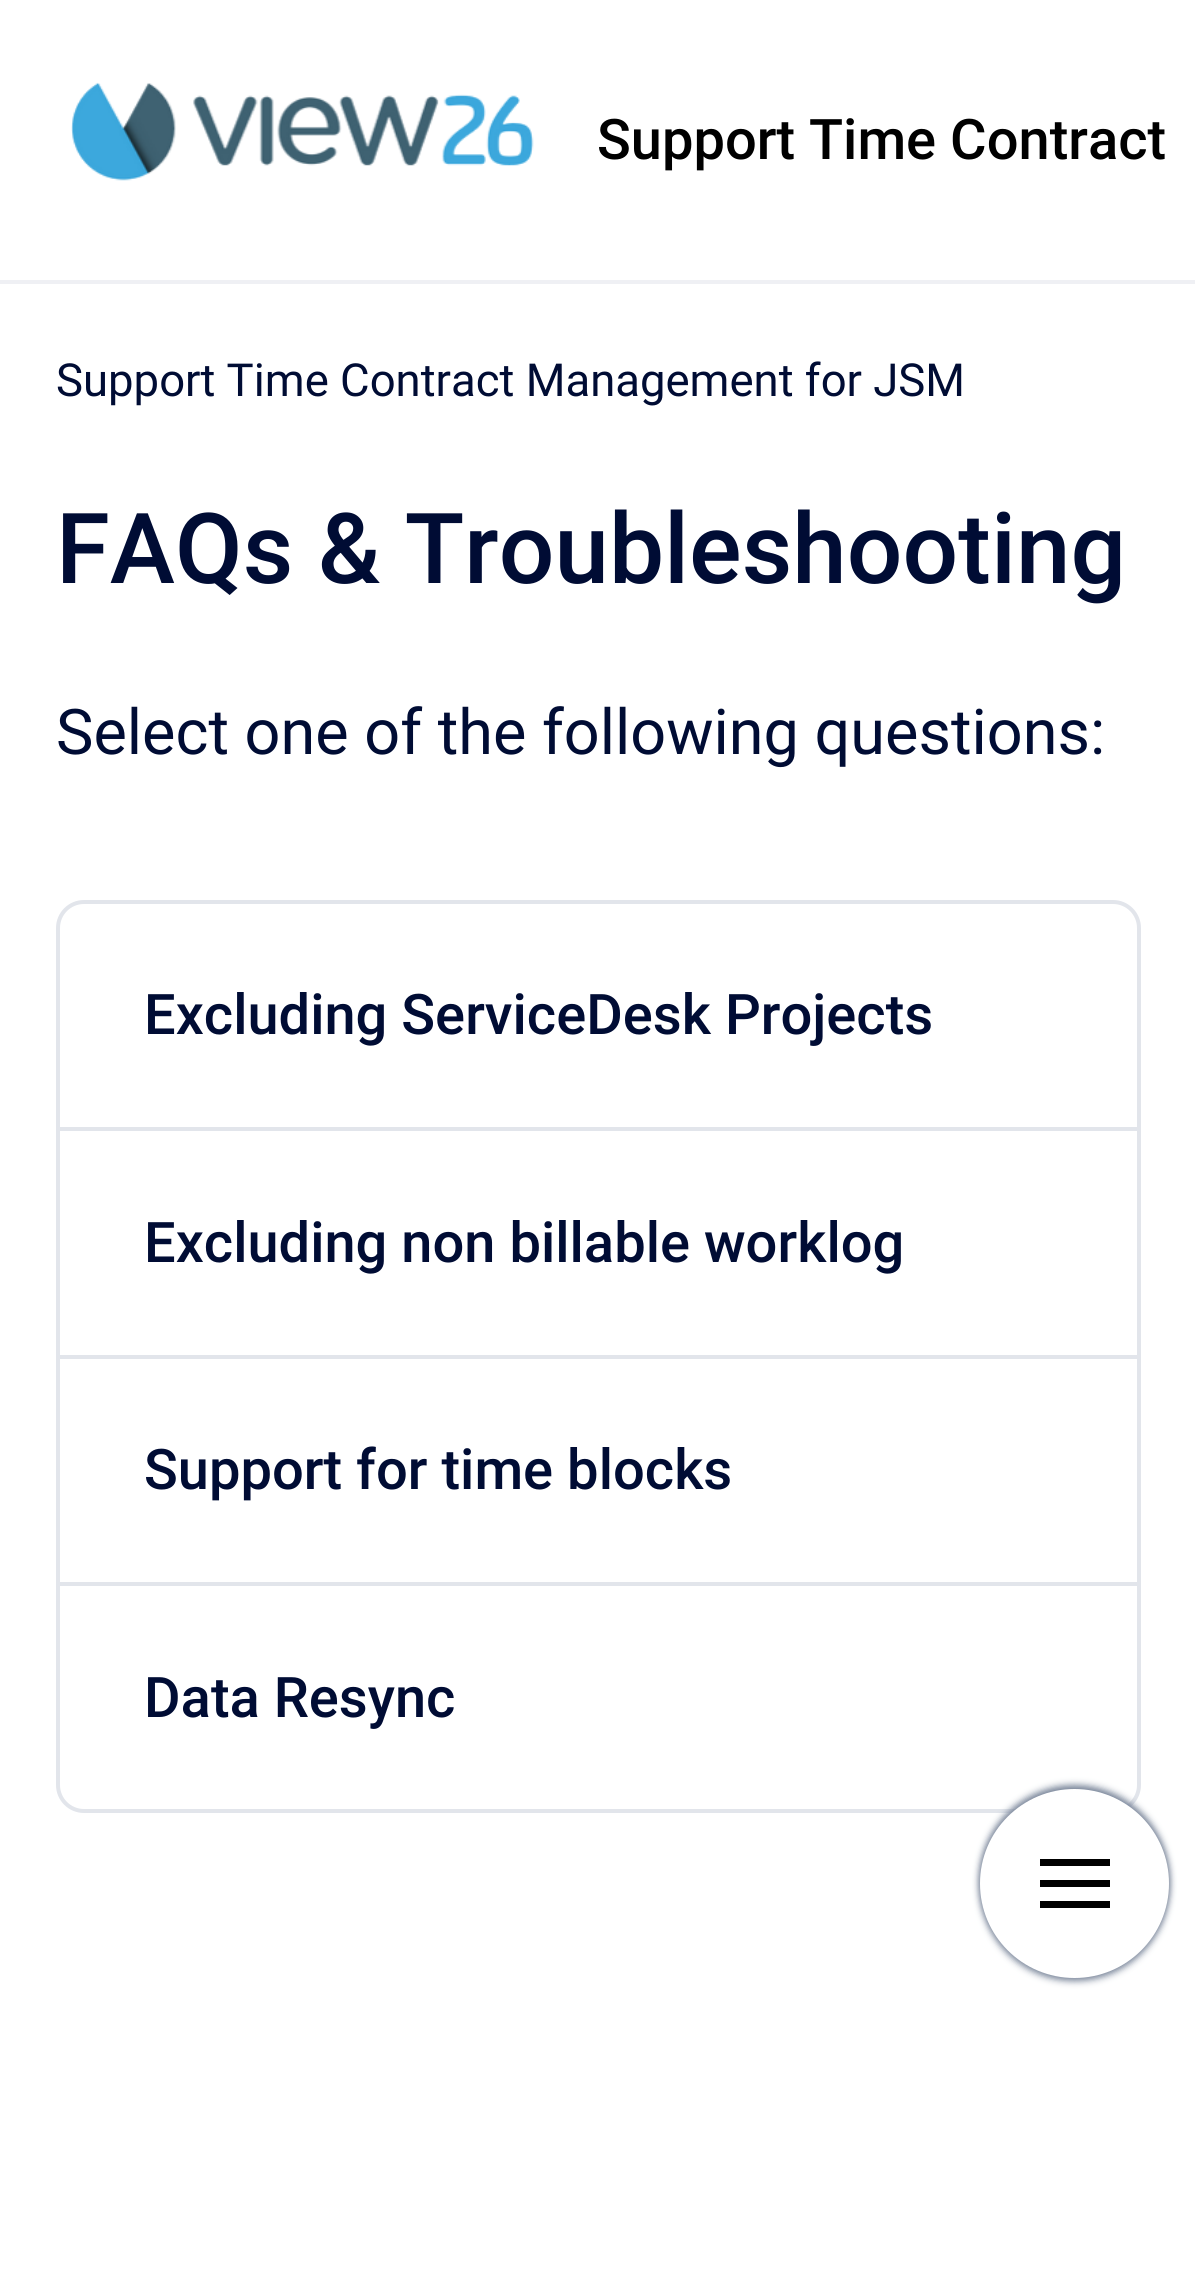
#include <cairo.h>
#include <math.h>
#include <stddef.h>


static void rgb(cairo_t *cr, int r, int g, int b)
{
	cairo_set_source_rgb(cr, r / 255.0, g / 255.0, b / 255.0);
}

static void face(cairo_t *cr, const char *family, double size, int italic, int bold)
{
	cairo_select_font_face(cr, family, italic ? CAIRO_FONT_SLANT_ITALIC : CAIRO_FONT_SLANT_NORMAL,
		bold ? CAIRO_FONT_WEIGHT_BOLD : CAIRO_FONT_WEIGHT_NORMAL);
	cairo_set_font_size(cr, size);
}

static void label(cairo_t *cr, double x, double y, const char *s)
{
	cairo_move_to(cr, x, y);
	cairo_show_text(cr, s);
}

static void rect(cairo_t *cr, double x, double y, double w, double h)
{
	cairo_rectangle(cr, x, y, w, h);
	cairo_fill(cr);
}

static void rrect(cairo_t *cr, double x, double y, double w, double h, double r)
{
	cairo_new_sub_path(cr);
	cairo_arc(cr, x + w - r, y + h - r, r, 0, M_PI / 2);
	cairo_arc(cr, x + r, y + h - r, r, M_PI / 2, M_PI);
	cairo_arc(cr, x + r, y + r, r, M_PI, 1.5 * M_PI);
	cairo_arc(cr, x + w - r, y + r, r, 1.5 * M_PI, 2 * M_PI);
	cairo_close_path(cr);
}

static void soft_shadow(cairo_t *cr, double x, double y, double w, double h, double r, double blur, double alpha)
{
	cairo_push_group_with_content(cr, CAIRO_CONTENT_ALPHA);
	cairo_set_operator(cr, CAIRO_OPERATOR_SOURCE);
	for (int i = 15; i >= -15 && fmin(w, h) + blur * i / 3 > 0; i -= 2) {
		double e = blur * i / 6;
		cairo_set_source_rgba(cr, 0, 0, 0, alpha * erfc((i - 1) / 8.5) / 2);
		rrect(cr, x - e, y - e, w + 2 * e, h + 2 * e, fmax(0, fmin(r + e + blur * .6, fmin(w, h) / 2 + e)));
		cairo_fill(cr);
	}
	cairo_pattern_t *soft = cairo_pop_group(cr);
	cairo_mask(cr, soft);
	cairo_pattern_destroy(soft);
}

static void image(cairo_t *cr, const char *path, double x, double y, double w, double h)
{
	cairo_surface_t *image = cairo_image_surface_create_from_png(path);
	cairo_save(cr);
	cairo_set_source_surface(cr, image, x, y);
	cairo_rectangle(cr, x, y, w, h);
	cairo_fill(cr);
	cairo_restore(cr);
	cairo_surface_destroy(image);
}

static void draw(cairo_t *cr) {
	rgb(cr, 255, 255, 255);
	cairo_paint(cr);
	rgb(cr, 239, 240, 244);
	rect(cr, 0, 280, 1195, 4);
	image(cr, "image0.png", 71, 82, 463, 99);
	face(cr, "Roboto Medium", 56, 0, 0);
	rgb(cr, 0, 0, 0);
	label(cr, 597, 159, "Support Time Contract");
	face(cr, "Roboto", 45.5, 0, 0);
	rgb(cr, 0, 12, 52);
	label(cr, 56, 396, "Support Time Contract Management for JSM");
	face(cr, "Roboto Medium", 98, 0, 0);
	label(cr, 56, 583, "FAQs & Troubleshooting");
	face(cr, "Roboto", 63, 0, 0);
	label(cr, 56, 754, "Select one of the following questions:");
	rrect(cr, 58, 902, 1081, 909, 26);
	rgb(cr, 226, 229, 235);
	cairo_set_line_width(cr, 4);
	cairo_stroke(cr);
	face(cr, "Roboto Medium", 56, 0, 0);
	rgb(cr, 0, 12, 52);
	label(cr, 144, 1034, "Excluding ServiceDesk Projects");
	rgb(cr, 226, 229, 235);
	rect(cr, 60, 1127, 1078, 4);
	rgb(cr, 0, 12, 52);
	label(cr, 144, 1262, "Excluding non billable worklog");
	rgb(cr, 226, 229, 235);
	rect(cr, 60, 1355, 1078, 4);
	rgb(cr, 0, 12, 52);
	label(cr, 144, 1489, "Support for time blocks");
	rgb(cr, 226, 229, 235);
	rect(cr, 60, 1582, 1078, 4);
	rgb(cr, 0, 12, 52);
	label(cr, 144, 1717, "Data Resync");
	rgb(cr, 122, 134, 154);
	soft_shadow(cr, 980, 1785, 189, 189, 94.5, 3.5, 1);
	soft_shadow(cr, 980, 1792, 189, 189, 94.5, 3.5, 1);
	rgb(cr, 255, 255, 255);
	cairo_arc(cr, 1074.5, 1883.5, 94.5, 0, 2 * M_PI);
	cairo_fill(cr);
	rgb(cr, 0, 0, 0);
	rect(cr, 1040, 1859, 70, 7);
	rect(cr, 1040, 1880, 70, 7);
	rect(cr, 1040, 1901, 70, 7);
}

int main(void) {
	cairo_surface_t *surface = cairo_image_surface_create(CAIRO_FORMAT_RGB24, 1195, 2277);
	cairo_t *cr = cairo_create(surface);
	cairo_font_options_t *options = cairo_font_options_create();
	cairo_font_options_set_hint_metrics(options, CAIRO_HINT_METRICS_OFF);
	cairo_font_options_set_hint_style(options, CAIRO_HINT_STYLE_NONE);
	cairo_set_font_options(cr, options);
	cairo_set_miter_limit(cr, 4);
	draw(cr);
	cairo_surface_write_to_png(surface, "render.png");
	cairo_font_options_destroy(options);
	cairo_destroy(cr);
	cairo_surface_destroy(surface);
	return 0;
}
